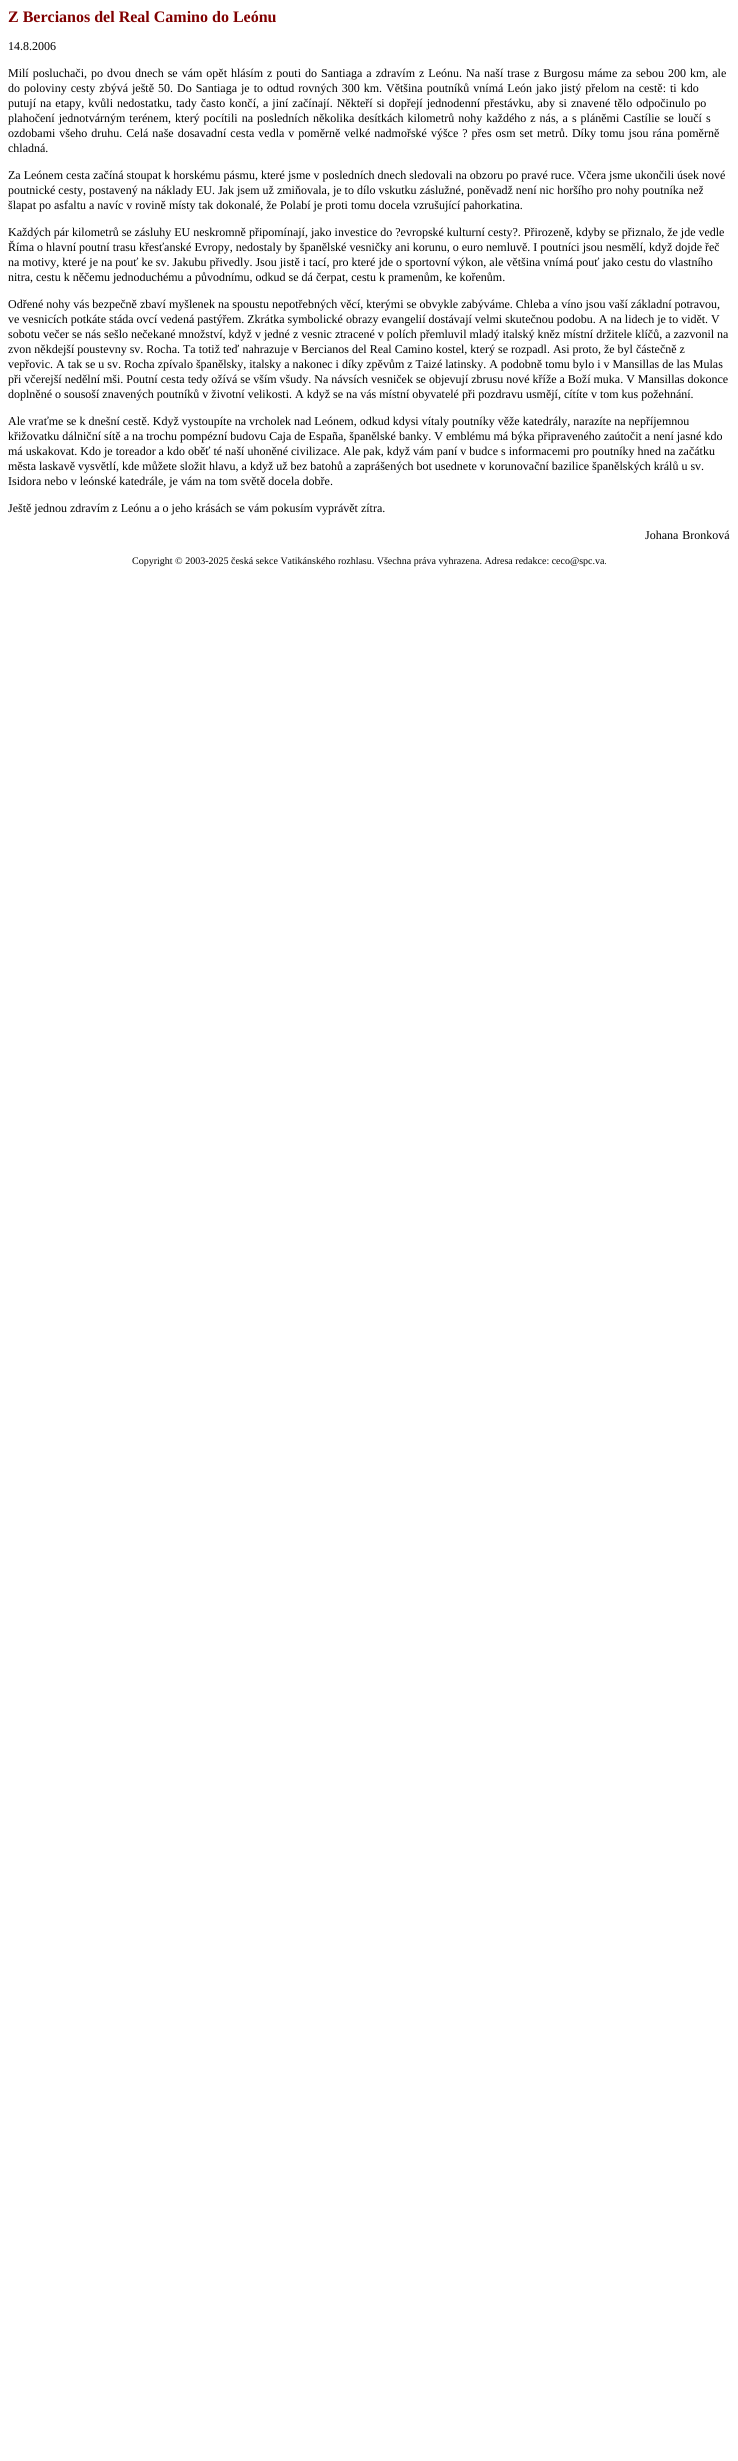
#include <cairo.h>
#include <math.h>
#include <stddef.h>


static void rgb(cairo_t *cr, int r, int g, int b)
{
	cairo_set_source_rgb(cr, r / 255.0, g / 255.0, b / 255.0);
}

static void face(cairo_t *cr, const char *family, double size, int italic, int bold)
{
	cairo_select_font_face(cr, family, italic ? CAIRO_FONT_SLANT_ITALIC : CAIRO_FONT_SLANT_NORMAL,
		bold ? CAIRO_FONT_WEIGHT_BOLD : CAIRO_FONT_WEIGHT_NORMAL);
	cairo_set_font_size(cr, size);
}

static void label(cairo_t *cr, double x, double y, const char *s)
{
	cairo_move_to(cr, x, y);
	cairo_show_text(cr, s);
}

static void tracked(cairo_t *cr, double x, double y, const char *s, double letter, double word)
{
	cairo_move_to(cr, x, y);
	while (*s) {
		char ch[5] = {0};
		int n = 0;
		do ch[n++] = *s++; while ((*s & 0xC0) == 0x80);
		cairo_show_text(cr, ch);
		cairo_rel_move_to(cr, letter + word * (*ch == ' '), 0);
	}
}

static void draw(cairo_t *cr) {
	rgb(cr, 255, 255, 255);
	cairo_paint(cr);
	face(cr, "Liberation Serif", 16, 0, 1);
	rgb(cr, 128, 0, 0);
	label(cr, 8, 22, "Z Bercianos del Real Camino do Leónu");
	face(cr, "Liberation Serif", 12, 0, 0);
	rgb(cr, 0, 0, 0);
	label(cr, 8, 50, "14.8.2006");
	tracked(cr, 8, 77, "Milí posluchači, po dvou dnech se vám opět hlásím z pouti do Santiaga a zdravím z Leónu. Na naší trase z Burgosu máme za sebou 200 km, ale", 0, 1);
	tracked(cr, 8, 92, "do poloviny cesty zbývá ještě 50. Do Santiaga je to odtud rovných 300 km. Většina poutníků vnímá León jako jistý přelom na cestě: ti kdo", 0, 1);
	tracked(cr, 8, 107, "putují na etapy, kvůli nedostatku, tady často končí, a jiní začínají. Někteří si dopřejí jednodenní přestávku, aby si znavené tělo odpočinulo po", 0, 1);
	tracked(cr, 8, 122, "plahočení jednotvárným terénem, který pocítili na posledních několika desítkách kilometrů nohy každého z nás, a s pláněmi Castílie se loučí s", 0, 1);
	tracked(cr, 8, 137, "ozdobami všeho druhu. Celá naše dosavadní cesta vedla v poměrně velké nadmořské výšce ? přes osm set metrů. Díky tomu jsou rána poměrně", 0, 1);
	label(cr, 8, 152, "chladná.");
	label(cr, 8, 179, "Za Leónem cesta začíná stoupat k horskému pásmu, které jsme v posledních dnech sledovali na obzoru po pravé ruce. Včera jsme ukončili úsek nové");
	label(cr, 8, 194, "poutnické cesty, postavený na náklady EU. Jak jsem už zmiňovala, je to dílo vskutku záslužné, poněvadž není nic horšího pro nohy poutníka než");
	label(cr, 8, 209, "šlapat po asfaltu a navíc v rovině místy tak dokonalé, že Polabí je proti tomu docela vzrušující pahorkatina.");
	label(cr, 8, 236, "Každých pár kilometrů se zásluhy EU neskromně připomínají, jako investice do ?evropské kulturní cesty?. Přirozeně, kdyby se přiznalo, že jde vedle");
	label(cr, 8, 251, "Říma o hlavní poutní trasu křesťanské Evropy, nedostaly by španělské vesničky ani korunu, o euro nemluvě. I poutníci jsou nesmělí, když dojde řeč");
	label(cr, 8, 266, "na motivy, které je na pouť ke sv. Jakubu přivedly. Jsou jistě i tací, pro které jde o sportovní výkon, ale většina vnímá pouť jako cestu do vlastního");
	label(cr, 8, 281, "nitra, cestu k něčemu jednoduchému a původnímu, odkud se dá čerpat, cestu k pramenům, ke kořenům.");
	label(cr, 8, 308, "Odřené nohy vás bezpečně zbaví myšlenek na spoustu nepotřebných věcí, kterými se obvykle zabýváme. Chleba a víno jsou vaší základní potravou,");
	label(cr, 8, 323, "ve vesnicích potkáte stáda ovcí vedená pastýřem. Zkrátka symbolické obrazy evangelií dostávají velmi skutečnou podobu. A na lidech je to vidět. V");
	label(cr, 8, 338, "sobotu večer se nás sešlo nečekané množství, když v jedné z vesnic ztracené v polích přemluvil mladý italský kněz místní držitele klíčů, a zazvonil na");
	label(cr, 8, 353, "zvon někdejší poustevny sv. Rocha. Ta totiž teď nahrazuje v Bercianos del Real Camino kostel, který se rozpadl. Asi proto, že byl částečně z");
	label(cr, 8, 368, "vepřovic. A tak se u sv. Rocha zpívalo španělsky, italsky a nakonec i díky zpěvům z Taizé latinsky. A podobně tomu bylo i v Mansillas de las Mulas");
	label(cr, 8, 383, "při včerejší nedělní mši. Poutní cesta tedy ožívá se vším všudy. Na návsích vesniček se objevují zbrusu nové kříže a Boží muka. V Mansillas dokonce");
	label(cr, 8, 398, "doplněné o sousoší znavených poutníků v životní velikosti. A když se na vás místní obyvatelé při pozdravu usmějí, cítíte v tom kus požehnání.");
	label(cr, 8, 425, "Ale vraťme se k dnešní cestě. Když vystoupíte na vrcholek nad Leónem, odkud kdysi vítaly poutníky věže katedrály, narazíte na nepříjemnou");
	label(cr, 8, 440, "křižovatku dálniční sítě a na trochu pompézní budovu Caja de España, španělské banky. V emblému má býka připraveného zaútočit a není jasné kdo");
	label(cr, 8, 455, "má uskakovat. Kdo je toreador a kdo oběť té naší uhoněné civilizace. Ale pak, když vám paní v budce s informacemi pro poutníky hned na začátku");
	label(cr, 8, 470, "města laskavě vysvětlí, kde můžete složit hlavu, a když už bez batohů a zaprášených bot usednete v korunovační bazilice španělských králů u sv.");
	label(cr, 8, 485, "Isidora nebo v leónské katedrále, je vám na tom světě docela dobře.");
	label(cr, 8, 512, "Ještě jednou zdravím z Leónu a o jeho krásách se vám pokusím vyprávět zítra.");
	tracked(cr, 645, 539, "Johana Bronková", 0, 1);
	face(cr, "Liberation Serif", 10, 0, 0);
	label(cr, 132, 564, "Copyright © 2003-2025 česká sekce Vatikánského rozhlasu. Všechna práva vyhrazena. Adresa redakce: ceco@spc.va.");
}

int main(void) {
	cairo_surface_t *surface = cairo_image_surface_create(CAIRO_FORMAT_RGB24, 738, 2461);
	cairo_t *cr = cairo_create(surface);
	cairo_font_options_t *options = cairo_font_options_create();
	cairo_font_options_set_hint_metrics(options, CAIRO_HINT_METRICS_OFF);
	cairo_font_options_set_hint_style(options, CAIRO_HINT_STYLE_NONE);
	cairo_set_font_options(cr, options);
	cairo_set_miter_limit(cr, 4);
	draw(cr);
	cairo_surface_write_to_png(surface, "render.png");
	cairo_font_options_destroy(options);
	cairo_destroy(cr);
	cairo_surface_destroy(surface);
	return 0;
}
